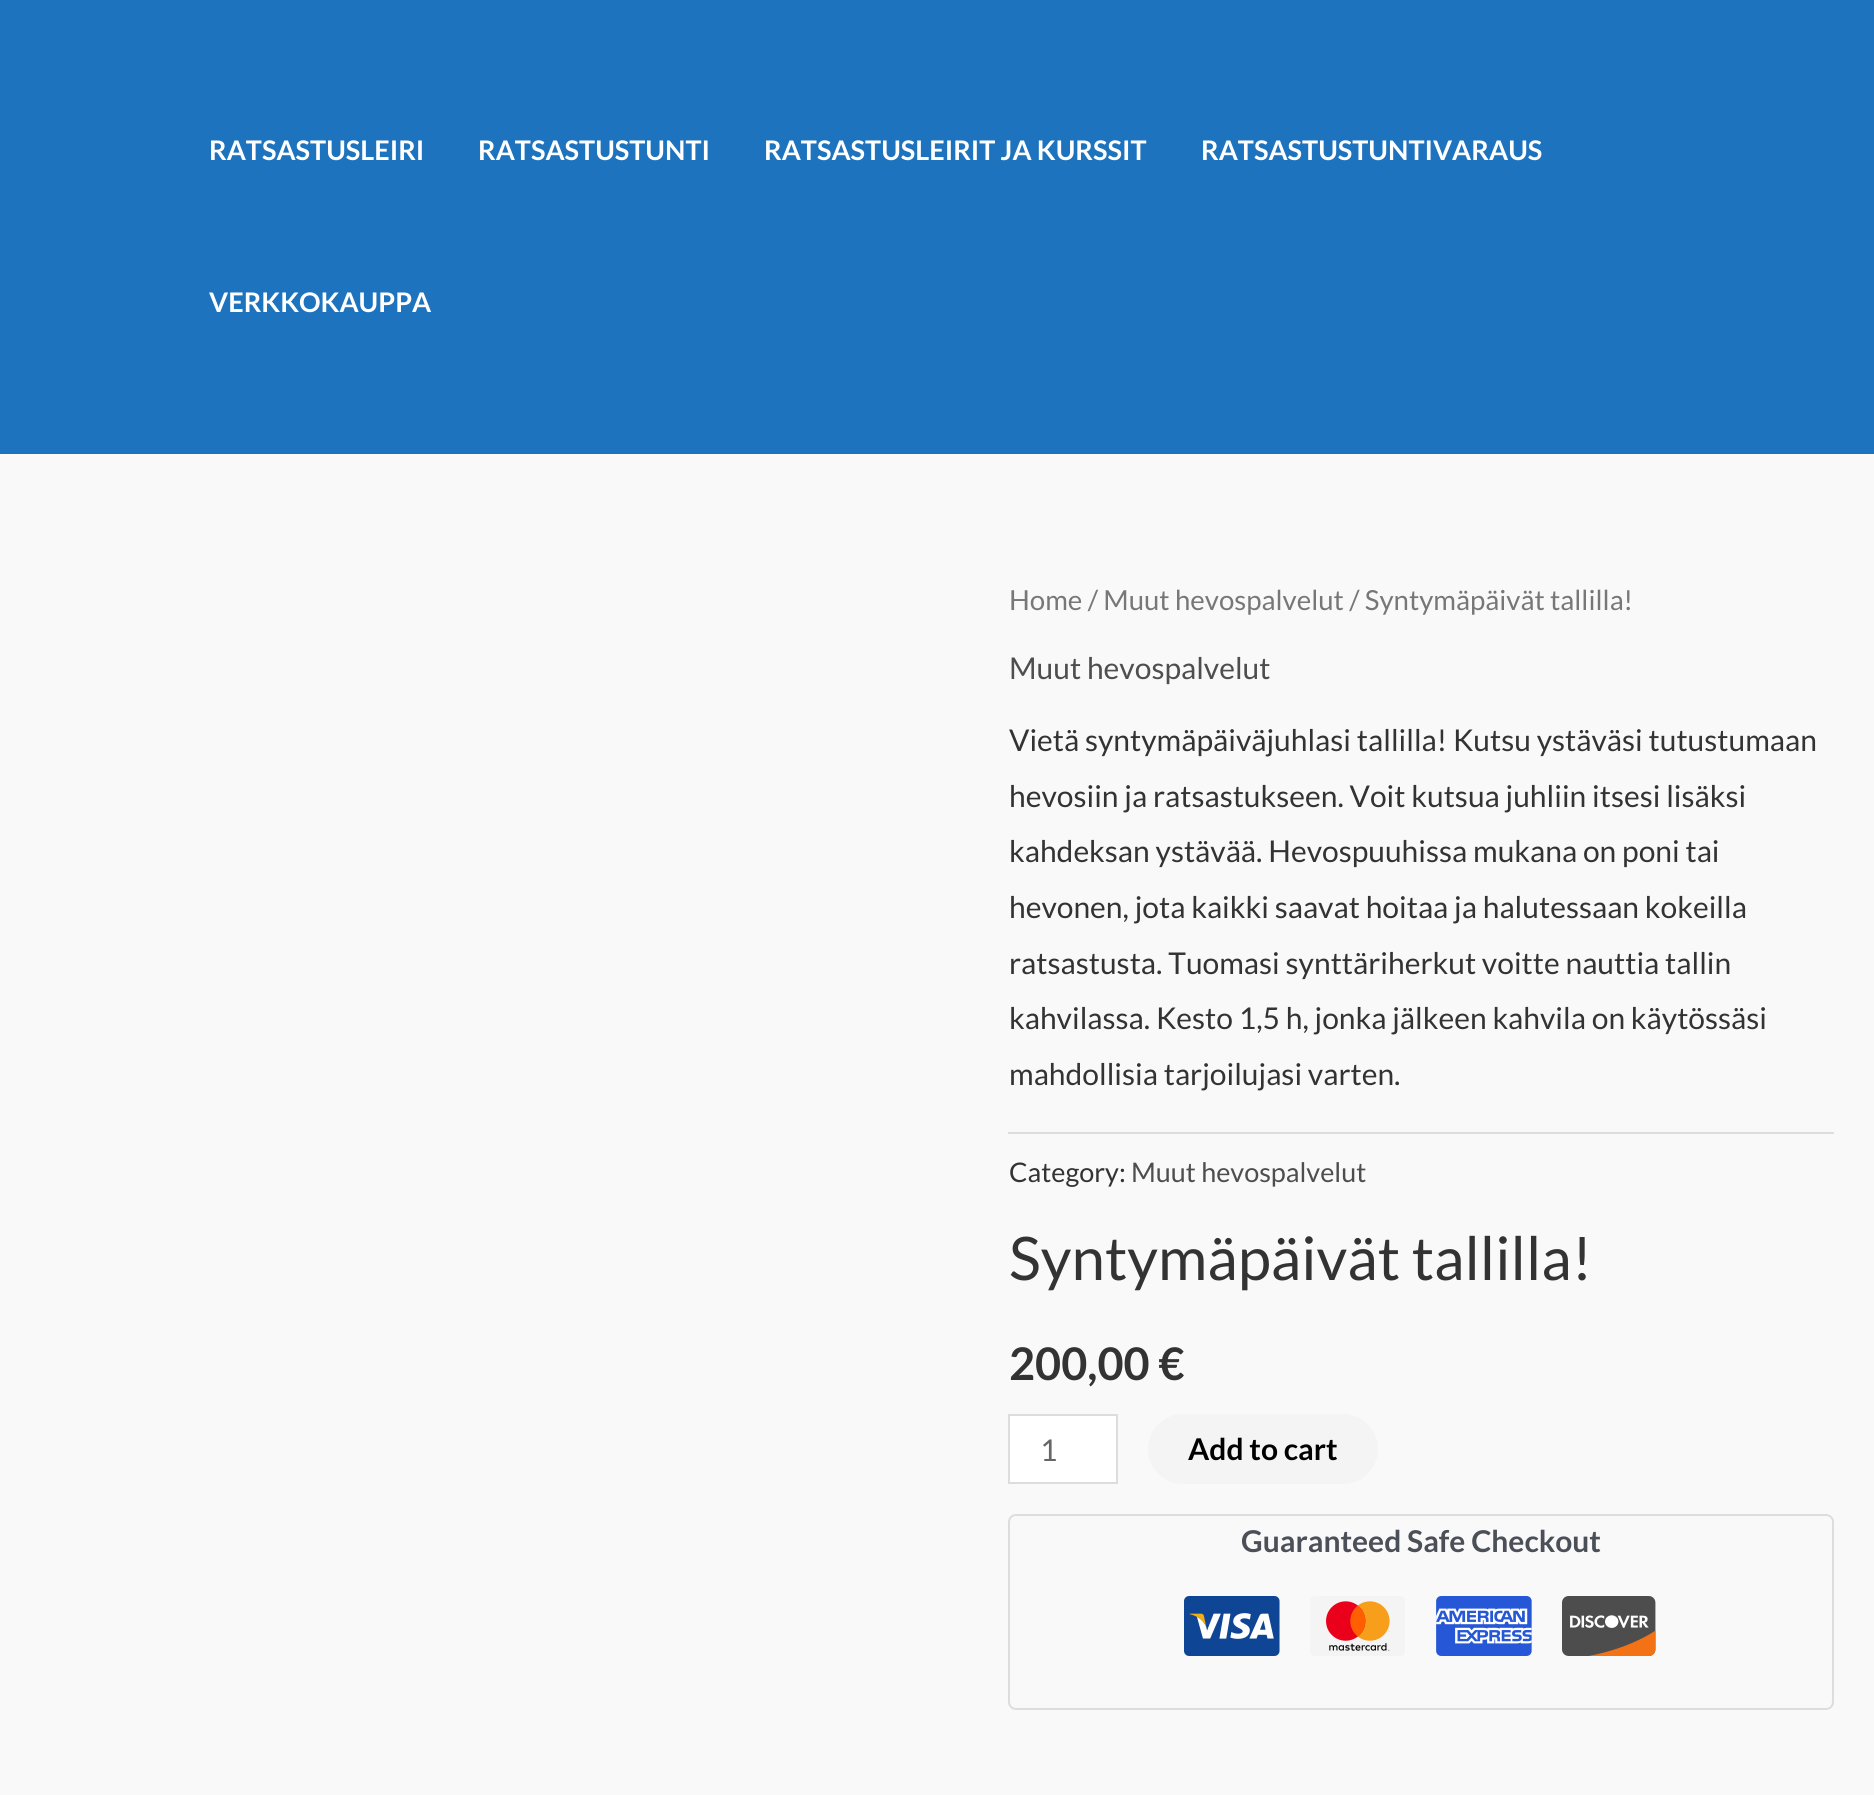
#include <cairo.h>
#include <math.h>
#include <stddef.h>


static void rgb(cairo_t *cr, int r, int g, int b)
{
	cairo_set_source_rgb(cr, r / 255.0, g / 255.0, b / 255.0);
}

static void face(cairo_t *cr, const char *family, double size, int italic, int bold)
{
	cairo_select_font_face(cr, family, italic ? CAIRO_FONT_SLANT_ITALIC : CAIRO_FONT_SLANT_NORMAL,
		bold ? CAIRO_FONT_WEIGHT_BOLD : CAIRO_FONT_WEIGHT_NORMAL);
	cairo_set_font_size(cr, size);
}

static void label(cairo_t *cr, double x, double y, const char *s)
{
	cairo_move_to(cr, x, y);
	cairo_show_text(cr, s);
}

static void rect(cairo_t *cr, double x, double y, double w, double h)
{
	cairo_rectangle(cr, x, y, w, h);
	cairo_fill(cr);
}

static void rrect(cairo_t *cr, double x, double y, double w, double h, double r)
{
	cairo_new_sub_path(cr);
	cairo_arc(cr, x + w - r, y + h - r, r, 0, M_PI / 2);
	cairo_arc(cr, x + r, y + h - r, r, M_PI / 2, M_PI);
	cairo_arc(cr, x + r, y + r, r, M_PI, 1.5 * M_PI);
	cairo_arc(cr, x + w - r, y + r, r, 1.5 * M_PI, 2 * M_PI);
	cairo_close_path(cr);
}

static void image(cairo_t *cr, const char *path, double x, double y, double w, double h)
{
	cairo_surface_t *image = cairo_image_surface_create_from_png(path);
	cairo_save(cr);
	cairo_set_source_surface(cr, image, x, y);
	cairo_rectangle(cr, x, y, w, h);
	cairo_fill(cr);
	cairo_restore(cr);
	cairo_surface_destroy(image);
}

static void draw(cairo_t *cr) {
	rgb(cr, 249, 249, 249);
	cairo_paint(cr);
	rgb(cr, 30, 115, 190);
	rect(cr, 0, 0, 1874, 452);
	rgb(cr, 30, 114, 188);
	rect(cr, 0, 452, 1874, 2);
	face(cr, "Lato", 27, 0, 1);
	rgb(cr, 255, 255, 255);
	label(cr, 209, 160, "RATSASTUSLEIRI");
	label(cr, 478, 160, "RATSASTUSTUNTI");
	label(cr, 764, 160, "RATSASTUSLEIRIT JA KURSSIT");
	label(cr, 1201, 160, "RATSASTUSTUNTIVARAUS");
	label(cr, 209, 312, "VERKKOKAUPPA");
	face(cr, "Lato", 27.6, 0, 0);
	rgb(cr, 119, 119, 119);
	label(cr, 1009, 610, "Home / Muut hevospalvelut / Syntymäpäivät tallilla!");
	face(cr, "Lato", 30, 0, 0);
	rgb(cr, 78, 78, 78);
	label(cr, 1009, 679, "Muut hevospalvelut");
	rgb(cr, 51, 51, 51);
	label(cr, 1009, 751, "Vietä syntymäpäiväjuhlasi tallilla! Kutsu ystäväsi tutustumaan");
	label(cr, 1009, 807, "hevosiin ja ratsastukseen. Voit kutsua juhliin itsesi lisäksi");
	label(cr, 1009, 862, "kahdeksan ystävää. Hevospuuhissa mukana on poni tai");
	label(cr, 1009, 918, "hevonen, jota kaikki saavat hoitaa ja halutessaan kokeilla");
	label(cr, 1009, 974, "ratsastusta. Tuomasi synttäriherkut voitte nauttia tallin");
	label(cr, 1009, 1029, "kahvilassa. Kesto 1,5 h, jonka jälkeen kahvila on käytössäsi");
	label(cr, 1009, 1085, "mahdollisia tarjoilujasi varten.");
	rgb(cr, 221, 221, 221);
	rect(cr, 1008, 1132, 826, 2);
	face(cr, "Lato", 27, 0, 0);
	rgb(cr, 51, 51, 51);
	label(cr, 1009, 1182, "Category:");
	rgb(cr, 78, 78, 78);
	label(cr, 1131, 1182, "Muut hevospalvelut");
	face(cr, "Lato", 60, 0, 0);
	rgb(cr, 51, 51, 51);
	label(cr, 1009, 1280, "Syntymäpäivät tallilla!");
	face(cr, "Lato", 45, 0, 1);
	label(cr, 1009, 1380, "200,00 €");
	rgb(cr, 255, 255, 255);
	cairo_rectangle(cr, 1009, 1415, 108, 68);
	cairo_fill_preserve(cr);
	rgb(cr, 221, 221, 221);
	cairo_stroke(cr);
	face(cr, "Lato", 30, 0, 0);
	rgb(cr, 102, 102, 102);
	label(cr, 1040, 1461, "1");
	rgb(cr, 244, 244, 244);
	rrect(cr, 1148, 1414, 230, 70, 35);
	cairo_fill(cr);
	face(cr, "Lato", 30, 0, 1);
	rgb(cr, 0, 0, 0);
	label(cr, 1188, 1460, "Add to cart");
	rrect(cr, 1009, 1515, 824, 194, 7);
	rgb(cr, 221, 221, 221);
	cairo_stroke(cr);
	rgb(cr, 75, 79, 88);
	label(cr, 1241, 1552, "Guaranteed Safe Checkout");
	image(cr, "image0.png", 1184, 1596, 96, 60);
	image(cr, "image1.png", 1310, 1596, 95, 60);
	image(cr, "image2.png", 1436, 1596, 96, 60);
	image(cr, "image3.png", 1562, 1596, 94, 60);
}

int main(void) {
	cairo_surface_t *surface = cairo_image_surface_create(CAIRO_FORMAT_RGB24, 1874, 1795);
	cairo_t *cr = cairo_create(surface);
	cairo_font_options_t *options = cairo_font_options_create();
	cairo_font_options_set_hint_metrics(options, CAIRO_HINT_METRICS_OFF);
	cairo_font_options_set_hint_style(options, CAIRO_HINT_STYLE_NONE);
	cairo_set_font_options(cr, options);
	cairo_set_miter_limit(cr, 4);
	draw(cr);
	cairo_surface_write_to_png(surface, "render.png");
	cairo_font_options_destroy(options);
	cairo_destroy(cr);
	cairo_surface_destroy(surface);
	return 0;
}
